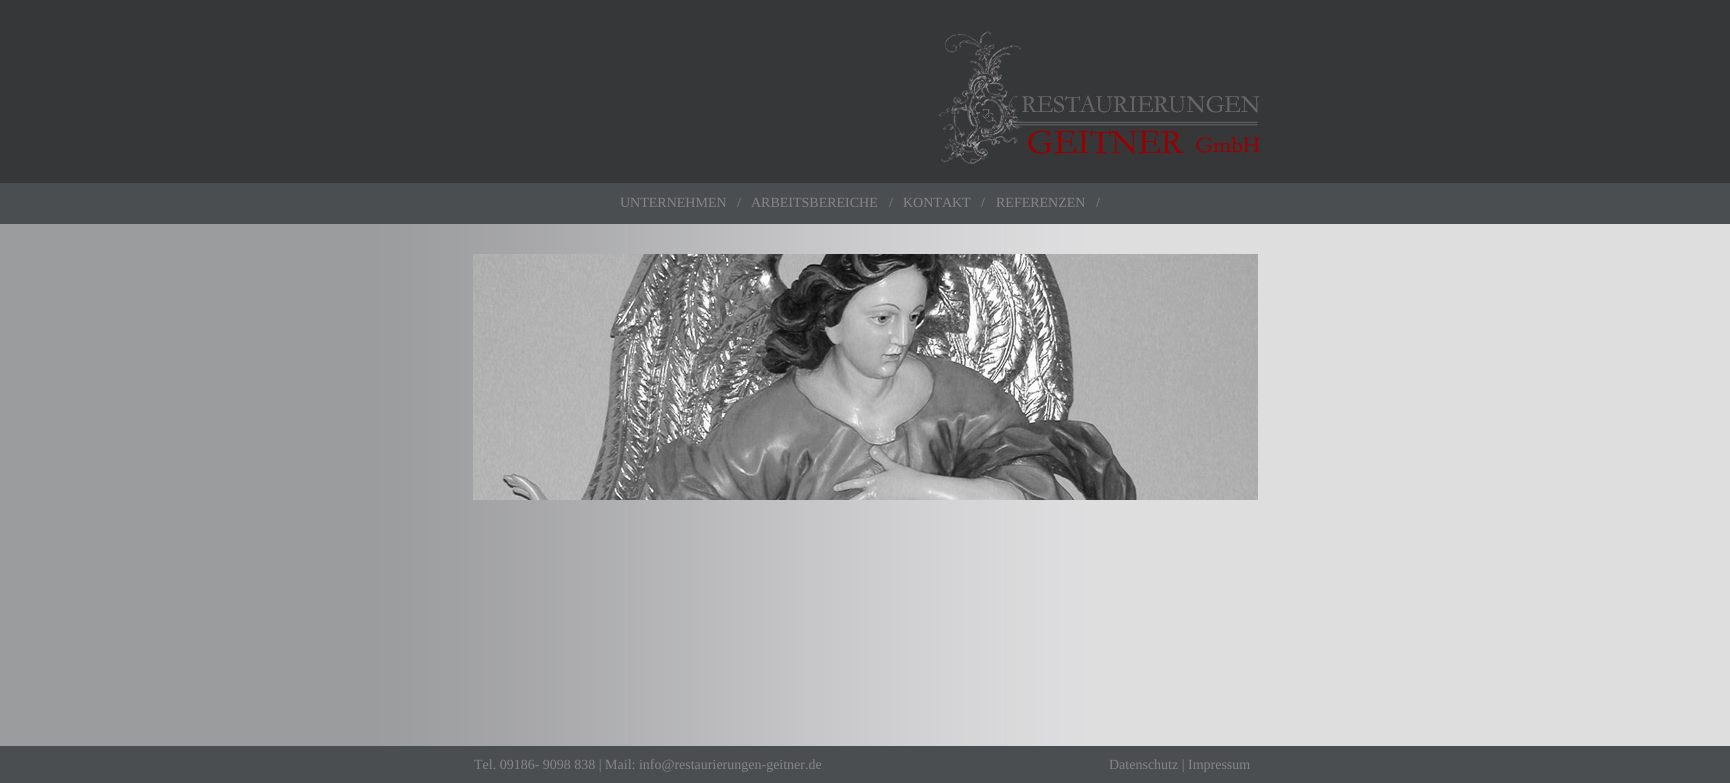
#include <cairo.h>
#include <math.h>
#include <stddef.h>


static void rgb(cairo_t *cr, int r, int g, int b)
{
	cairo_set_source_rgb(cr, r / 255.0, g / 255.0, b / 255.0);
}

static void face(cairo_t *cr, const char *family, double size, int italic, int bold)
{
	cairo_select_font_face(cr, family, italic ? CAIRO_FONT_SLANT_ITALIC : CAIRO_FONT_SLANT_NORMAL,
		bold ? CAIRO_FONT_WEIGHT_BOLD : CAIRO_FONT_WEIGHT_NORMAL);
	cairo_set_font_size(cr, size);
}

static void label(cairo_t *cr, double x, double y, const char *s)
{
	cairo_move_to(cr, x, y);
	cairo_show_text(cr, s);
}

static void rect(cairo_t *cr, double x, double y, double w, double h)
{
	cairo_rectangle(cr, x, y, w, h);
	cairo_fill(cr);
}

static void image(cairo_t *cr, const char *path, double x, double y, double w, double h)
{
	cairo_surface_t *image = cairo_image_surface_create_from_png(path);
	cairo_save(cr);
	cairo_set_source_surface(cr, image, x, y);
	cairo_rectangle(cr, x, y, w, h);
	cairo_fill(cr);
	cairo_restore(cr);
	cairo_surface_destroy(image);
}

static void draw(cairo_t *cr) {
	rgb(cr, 255, 255, 255);
	cairo_paint(cr);
	image(cr, "image0.png", 0, 0, 370, 224);
	rgb(cr, 155, 156, 158);
	rect(cr, 0, 224, 370, 522);
	rgb(cr, 74, 78, 81);
	rect(cr, 0, 746, 1730, 37);
	image(cr, "image1.png", 370, 0, 990, 224);
	image(cr, "image2.png", 938, 31, 322, 134);
	face(cr, "Liberation Serif", 14, 0, 0);
	rgb(cr, 133, 133, 133);
	label(cr, 620, 207, "UNTERNEHMEN");
	label(cr, 737, 207, "/");
	label(cr, 751, 207, "ARBEITSBEREICHE");
	label(cr, 889, 207, "/");
	label(cr, 903, 207, "KONTAKT");
	label(cr, 981, 207, "/");
	label(cr, 996, 207, "REFERENZEN");
	label(cr, 1096, 207, "/");
	image(cr, "image3.png", 370, 224, 990, 522);
	image(cr, "image4.png", 473, 254, 785, 246);
	label(cr, 474, 769, "Tel. 09186- 9098 838 | Mail: info@restaurierungen-geitner.de");
	label(cr, 1109, 769, "Datenschutz | Impressum");
	image(cr, "image0.png", 1360, 0, 370, 224);
	rgb(cr, 222, 222, 222);
	rect(cr, 1360, 224, 370, 522);
}

int main(void) {
	cairo_surface_t *surface = cairo_image_surface_create(CAIRO_FORMAT_RGB24, 1730, 783);
	cairo_t *cr = cairo_create(surface);
	cairo_font_options_t *options = cairo_font_options_create();
	cairo_font_options_set_hint_metrics(options, CAIRO_HINT_METRICS_OFF);
	cairo_font_options_set_hint_style(options, CAIRO_HINT_STYLE_NONE);
	cairo_set_font_options(cr, options);
	cairo_set_miter_limit(cr, 4);
	draw(cr);
	cairo_surface_write_to_png(surface, "render.png");
	cairo_font_options_destroy(options);
	cairo_destroy(cr);
	cairo_surface_destroy(surface);
	return 0;
}
